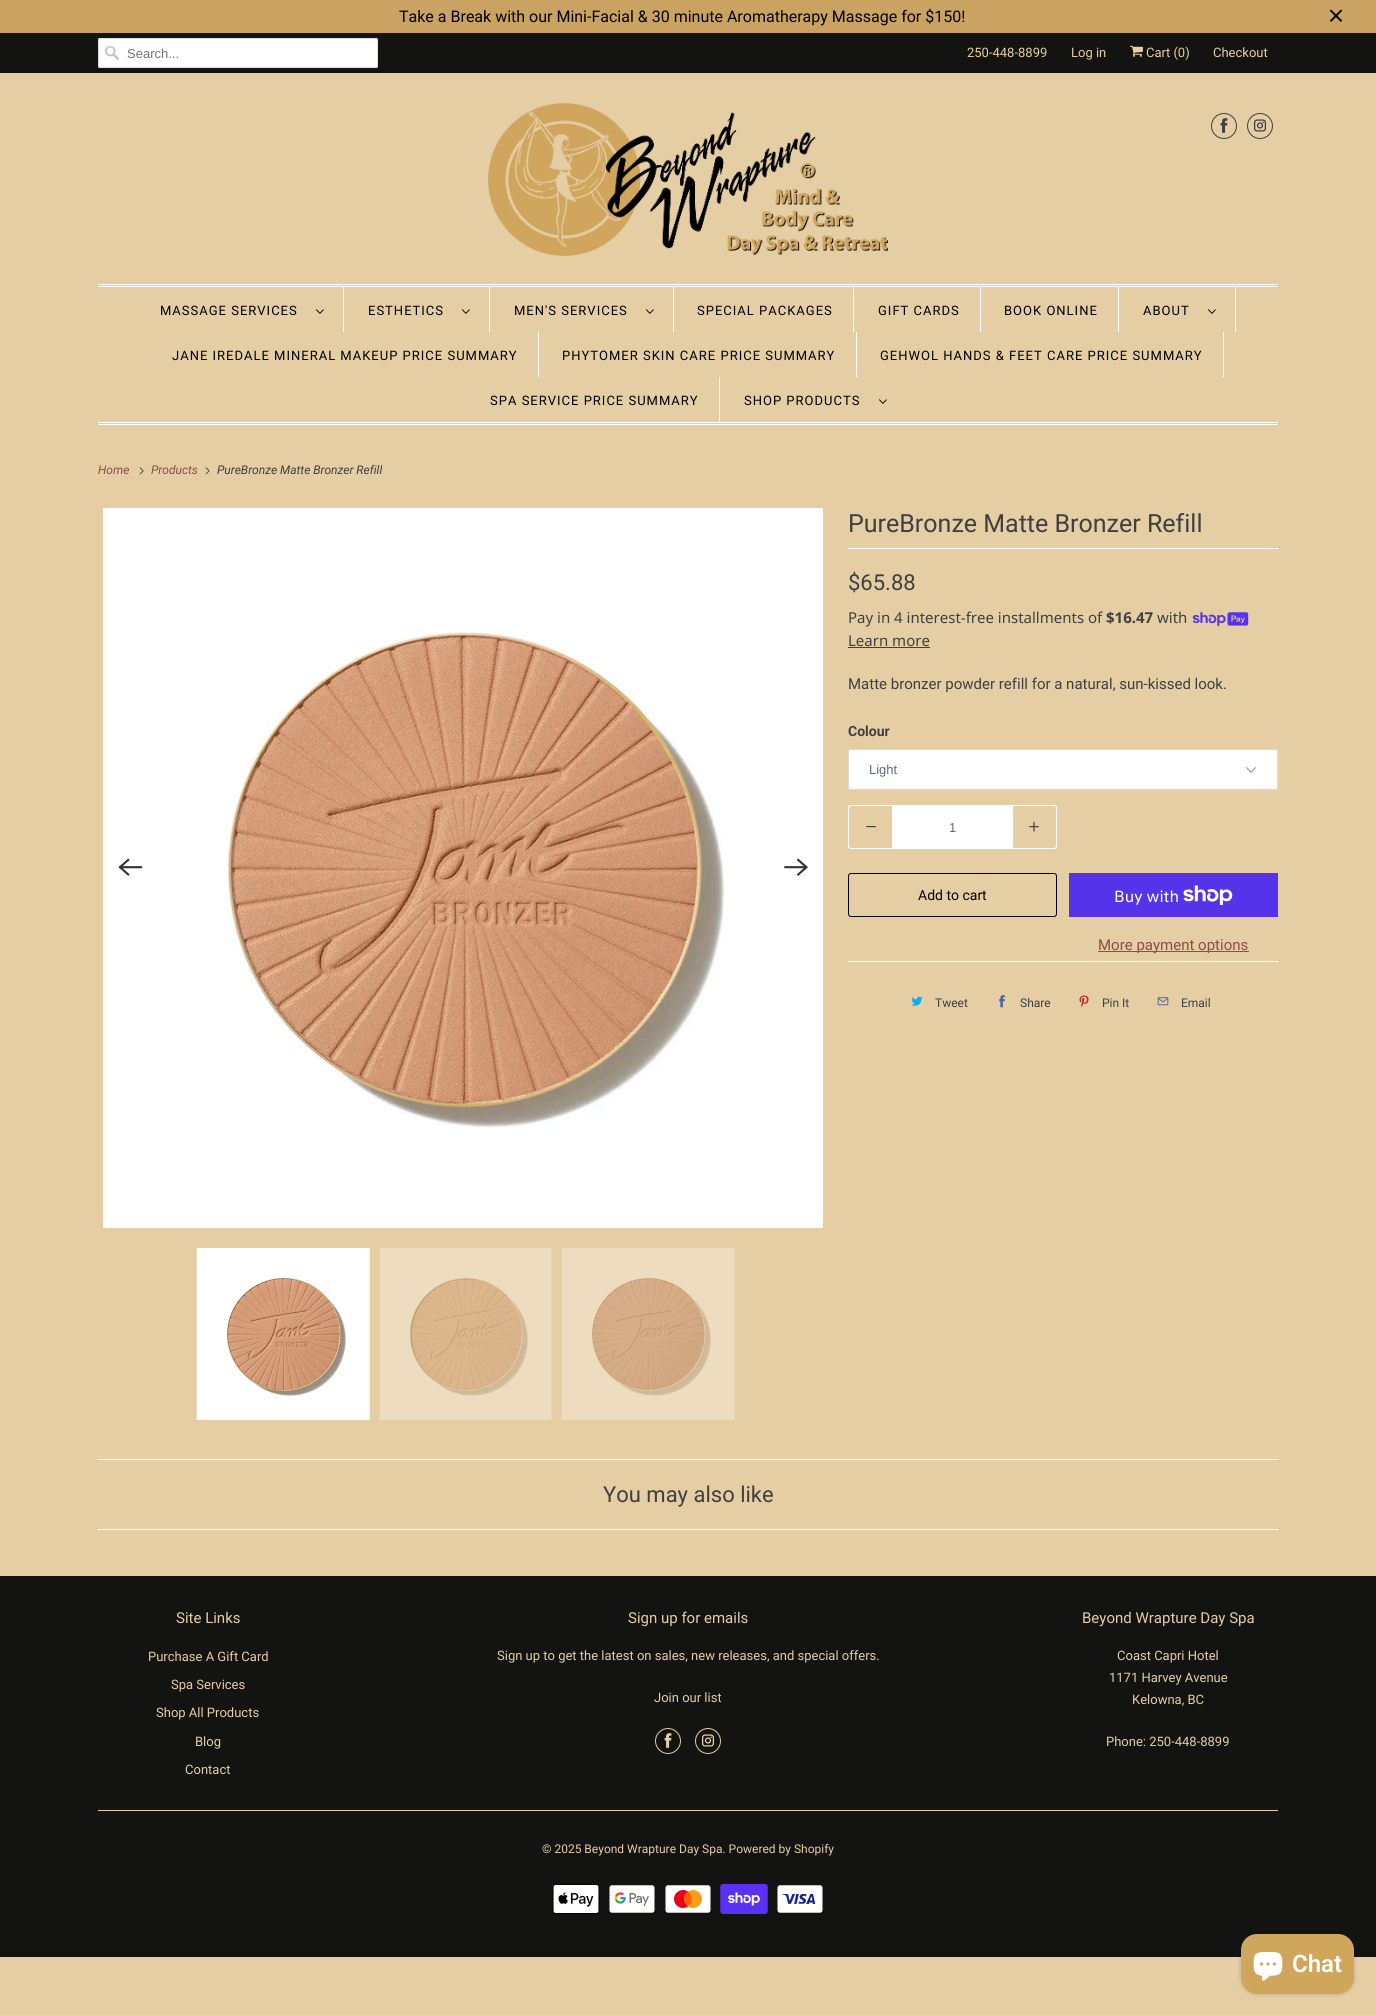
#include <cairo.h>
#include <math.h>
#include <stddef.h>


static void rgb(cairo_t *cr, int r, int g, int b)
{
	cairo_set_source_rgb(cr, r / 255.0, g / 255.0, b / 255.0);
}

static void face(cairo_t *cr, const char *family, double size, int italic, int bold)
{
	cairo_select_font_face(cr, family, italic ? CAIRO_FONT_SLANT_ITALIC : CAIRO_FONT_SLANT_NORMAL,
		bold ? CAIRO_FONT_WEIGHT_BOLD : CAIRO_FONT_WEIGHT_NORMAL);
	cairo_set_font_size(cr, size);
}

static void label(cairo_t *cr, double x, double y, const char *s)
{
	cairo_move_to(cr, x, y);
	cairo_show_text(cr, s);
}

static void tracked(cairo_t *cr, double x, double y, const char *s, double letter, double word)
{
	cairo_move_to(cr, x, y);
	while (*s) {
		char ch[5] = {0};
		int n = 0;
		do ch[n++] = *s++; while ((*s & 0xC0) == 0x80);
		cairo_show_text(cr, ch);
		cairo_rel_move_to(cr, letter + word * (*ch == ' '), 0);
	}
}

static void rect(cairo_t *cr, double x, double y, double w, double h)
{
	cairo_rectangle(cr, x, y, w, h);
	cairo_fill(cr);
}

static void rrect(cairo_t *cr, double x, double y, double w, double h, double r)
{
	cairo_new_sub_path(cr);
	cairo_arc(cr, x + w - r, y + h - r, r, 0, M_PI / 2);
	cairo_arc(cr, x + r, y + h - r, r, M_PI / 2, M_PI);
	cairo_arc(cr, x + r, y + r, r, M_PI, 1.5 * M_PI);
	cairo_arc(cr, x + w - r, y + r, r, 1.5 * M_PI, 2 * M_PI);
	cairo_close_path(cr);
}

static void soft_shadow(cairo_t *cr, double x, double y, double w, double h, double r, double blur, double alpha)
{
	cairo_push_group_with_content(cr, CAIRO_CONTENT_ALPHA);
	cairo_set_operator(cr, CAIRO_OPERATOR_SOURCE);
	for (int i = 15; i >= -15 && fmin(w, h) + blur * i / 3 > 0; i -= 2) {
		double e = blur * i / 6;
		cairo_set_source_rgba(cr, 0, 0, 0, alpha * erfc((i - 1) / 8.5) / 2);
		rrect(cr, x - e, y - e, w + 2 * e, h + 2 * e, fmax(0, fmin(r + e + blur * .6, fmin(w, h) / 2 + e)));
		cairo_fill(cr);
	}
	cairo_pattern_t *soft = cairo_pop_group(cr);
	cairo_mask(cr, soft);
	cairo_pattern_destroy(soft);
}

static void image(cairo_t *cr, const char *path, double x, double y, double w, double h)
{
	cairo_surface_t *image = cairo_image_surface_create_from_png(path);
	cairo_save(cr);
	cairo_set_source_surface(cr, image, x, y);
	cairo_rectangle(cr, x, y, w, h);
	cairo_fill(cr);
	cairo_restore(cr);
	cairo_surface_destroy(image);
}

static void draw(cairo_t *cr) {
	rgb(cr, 229, 205, 164);
	cairo_paint(cr);
	rgb(cr, 202, 163, 99);
	rect(cr, 0, 0, 1376, 33);
	face(cr, "Roboto", 16, 0, 0);
	rgb(cr, 0, 0, 0);
	label(cr, 399, 22, "Take a Break with our Mini-Facial & 30 minute Aromatherapy Massage for $150!");
	image(cr, "image0.png", 1330, 9, 12, 13);
	rgb(cr, 19, 19, 18);
	rect(cr, 0, 33, 1376, 40);
	rgb(cr, 255, 255, 255);
	rrect(cr, 98, 38, 280, 30, 2);
	cairo_fill(cr);
	image(cr, "image1.png", 105, 46, 14, 14);
	rrect(cr, 98.5, 38.5, 279, 29, 1.5);
	rgb(cr, 223, 223, 223);
	cairo_set_line_width(cr, 1);
	cairo_stroke(cr);
	face(cr, "Liberation Sans", 13, 0, 0);
	rgb(cr, 117, 117, 117);
	label(cr, 127, 58, "Search...");
	face(cr, "Roboto", 13, 0, 0);
	rgb(cr, 229, 205, 164);
	label(cr, 967, 57, "250-448-8899");
	label(cr, 1071, 57, "Log in");
	image(cr, "image2.png", 1130, 45, 13, 12);
	label(cr, 1146, 57, "Cart (0)");
	label(cr, 1213, 57, "Checkout");
	image(cr, "image3.png", 488, 103, 400, 153);
	cairo_arc(cr, 1224, 126, 12.5, 0, 2 * M_PI);
	rgb(cr, 64, 64, 64);
	cairo_stroke(cr);
	image(cr, "image4.png", 1220, 118, 8, 15);
	cairo_arc(cr, 1260, 126, 12.5, 0, 2 * M_PI);
	cairo_stroke(cr);
	image(cr, "image5.png", 1253, 119, 14, 13);
	rgb(cr, 255, 255, 255);
	rect(cr, 98, 284, 1180, 1);
	rect(cr, 98, 286, 1180, 1);
	rect(cr, 98, 422, 1180, 1);
	rect(cr, 98, 424, 1180, 1);
	rect(cr, 343, 287, 1, 45);
	rgb(cr, 0, 0, 0);
	tracked(cr, 160, 315, "MASSAGE SERVICES", 1, 0);
	image(cr, "image6.png", 316, 309, 8, 5);
	rgb(cr, 255, 255, 255);
	rect(cr, 489, 287, 1, 45);
	rgb(cr, 0, 0, 0);
	tracked(cr, 368, 315, "ESTHETICS", 1, 0);
	image(cr, "image6.png", 462, 309, 8, 5);
	rgb(cr, 255, 255, 255);
	rect(cr, 673, 287, 1, 45);
	rgb(cr, 0, 0, 0);
	tracked(cr, 514, 315, "MEN'S SERVICES", 1, 0);
	image(cr, "image6.png", 646, 309, 8, 5);
	rgb(cr, 255, 255, 255);
	rect(cr, 853, 287, 1, 45);
	rgb(cr, 0, 0, 0);
	tracked(cr, 697, 315, "SPECIAL PACKAGES", 1, 0);
	rgb(cr, 255, 255, 255);
	rect(cr, 980, 287, 1, 45);
	rgb(cr, 0, 0, 0);
	tracked(cr, 878, 315, "GIFT CARDS", 1, 0);
	rgb(cr, 255, 255, 255);
	rect(cr, 1118, 287, 1, 45);
	rgb(cr, 0, 0, 0);
	tracked(cr, 1004, 315, "BOOK ONLINE", 1, 0);
	rgb(cr, 255, 255, 255);
	rect(cr, 1235, 287, 1, 45);
	rgb(cr, 0, 0, 0);
	tracked(cr, 1143, 315, "ABOUT", 1, 0);
	image(cr, "image6.png", 1208, 309, 8, 5);
	rgb(cr, 255, 255, 255);
	rect(cr, 538, 332, 1, 45);
	rgb(cr, 0, 0, 0);
	tracked(cr, 172, 360, "JANE IREDALE MINERAL MAKEUP PRICE SUMMARY", 1, 0);
	rgb(cr, 255, 255, 255);
	rect(cr, 856, 332, 1, 45);
	rgb(cr, 0, 0, 0);
	tracked(cr, 562, 360, "PHYTOMER SKIN CARE PRICE SUMMARY", 1, 0);
	rgb(cr, 255, 255, 255);
	rect(cr, 1223, 332, 1, 45);
	rgb(cr, 0, 0, 0);
	tracked(cr, 880, 360, "GEHWOL HANDS & FEET CARE PRICE SUMMARY", 1, 0);
	rgb(cr, 255, 255, 255);
	rect(cr, 719, 377, 1, 45);
	rgb(cr, 0, 0, 0);
	tracked(cr, 490, 405, "SPA SERVICE PRICE SUMMARY", 1, 0);
	tracked(cr, 744, 405, "SHOP PRODUCTS", 1, 0);
	image(cr, "image6.png", 879, 399, 8, 5);
	face(cr, "Roboto", 12, 1, 0);
	rgb(cr, 146, 74, 77);
	label(cr, 98, 474, "Home");
	image(cr, "image7.png", 139, 467, 5, 8);
	label(cr, 151, 474, "Products");
	image(cr, "image7.png", 205, 467, 5, 8);
	rgb(cr, 64, 64, 64);
	label(cr, 217, 474, "PureBronze Matte Bronzer Refill");
	image(cr, "image8.png", 103, 508, 720, 720);
	image(cr, "image9.png", 118, 858, 25, 18);
	image(cr, "image10.png", 784, 858, 24, 18);
	image(cr, "image11.png", 196, 1248, 174, 172);
	image(cr, "image12.png", 379, 1248, 173, 172);
	image(cr, "image13.png", 561, 1248, 174, 172);
	rgb(cr, 255, 255, 255);
	rect(cr, 848, 548, 430, 1);
	face(cr, "Roboto", 25, 0, 0);
	rgb(cr, 64, 64, 64);
	label(cr, 848, 532, "PureBronze Matte Bronzer Refill");
	face(cr, "Roboto", 22, 0, 0);
	label(cr, 848, 590, "$65.88");
	face(cr, "Noto Sans", 15, 0, 0);
	label(cr, 848, 623, "Pay in 4 interest-free installments of");
	face(cr, "Noto Sans", 15, 0, 1);
	label(cr, 1106, 623, "$16.47");
	face(cr, "Noto Sans", 15, 0, 0);
	label(cr, 1157, 623, "with");
	image(cr, "image14.png", 1192, 612, 57, 14);
	label(cr, 848, 646, "Learn more");
	rect(cr, 848, 647, 82, 1);
	face(cr, "Roboto", 15, 0, 0);
	label(cr, 848, 689, "Matte bronzer powder refill for a natural, sun-kissed look.");
	face(cr, "Roboto", 14, 0, 1);
	label(cr, 848, 736, "Colour");
	rgb(cr, 255, 255, 255);
	rrect(cr, 848, 749, 430, 41, 3);
	cairo_fill(cr);
	image(cr, "image15.png", 1246, 767, 10, 6);
	rrect(cr, 848.5, 749.5, 429, 40, 2.5);
	rgb(cr, 217, 219, 220);
	cairo_stroke(cr);
	face(cr, "Liberation Sans", 13, 0, 0);
	rgb(cr, 95, 106, 125);
	label(cr, 869, 774, "Light");
	rgb(cr, 255, 255, 255);
	cairo_set_fill_rule(cr, CAIRO_FILL_RULE_EVEN_ODD);
	cairo_new_path(cr);
	cairo_move_to(cr, 851, 805);
	cairo_line_to(cr, 892, 805);
	cairo_line_to(cr, 892, 849);
	cairo_line_to(cr, 851, 849);
	cairo_curve_to(cr, 849, 849, 848, 848, 848, 846);
	cairo_line_to(cr, 848, 808);
	cairo_curve_to(cr, 848, 806, 849, 805, 851, 805);
	cairo_close_path(cr);
	cairo_move_to(cr, 851, 806);
	cairo_line_to(cr, 892, 806);
	cairo_line_to(cr, 892, 848);
	cairo_line_to(cr, 851, 848);
	cairo_curve_to(cr, 850, 848, 849, 847, 849, 846);
	cairo_line_to(cr, 849, 808);
	cairo_curve_to(cr, 849, 807, 850, 806, 851, 806);
	cairo_close_path(cr);
	cairo_fill(cr);
	image(cr, "image16.png", 866, 826, 10, 2);
	rect(cr, 892, 805, 121, 44);
	rgb(cr, 95, 106, 125);
	label(cr, 949, 832, "1");
	rgb(cr, 255, 255, 255);
	cairo_new_path(cr);
	cairo_move_to(cr, 1013, 805);
	cairo_line_to(cr, 1054, 805);
	cairo_curve_to(cr, 1056, 805, 1057, 806, 1057, 808);
	cairo_line_to(cr, 1057, 846);
	cairo_curve_to(cr, 1057, 848, 1056, 849, 1054, 849);
	cairo_line_to(cr, 1013, 849);
	cairo_close_path(cr);
	cairo_move_to(cr, 1013, 806);
	cairo_line_to(cr, 1054, 806);
	cairo_curve_to(cr, 1055, 806, 1056, 807, 1056, 808);
	cairo_line_to(cr, 1056, 846);
	cairo_curve_to(cr, 1056, 847, 1055, 848, 1054, 848);
	cairo_line_to(cr, 1013, 848);
	cairo_close_path(cr);
	cairo_fill(cr);
	image(cr, "image17.png", 1029, 821, 10, 11);
	rrect(cr, 848.5, 873.5, 208, 43, 2.5);
	rgb(cr, 0, 0, 0);
	cairo_stroke(cr);
	face(cr, "Roboto", 14, 0, 0);
	label(cr, 918, 900, "Add to cart");
	rgb(cr, 84, 51, 235);
	rect(cr, 1069, 873, 209, 44);
	face(cr, "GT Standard", 16, 0, 0);
	rgb(cr, 255, 255, 255);
	label(cr, 1114, 902, "Buy with");
	image(cr, "image18.png", 1183, 885, 50, 20);
	rgb(cr, 146, 74, 77);
	rect(cr, 1098, 951, 151, 1);
	face(cr, "Roboto", 15, 0, 0);
	label(cr, 1098, 950, "More payment options");
	rgb(cr, 255, 255, 255);
	rect(cr, 848, 961, 430, 1);
	image(cr, "image19.png", 911, 996, 12, 10);
	face(cr, "Roboto", 12, 0, 0);
	rgb(cr, 64, 64, 64);
	label(cr, 935, 1007, "Tweet");
	image(cr, "image20.png", 999, 995, 6, 13);
	label(cr, 1020, 1007, "Share");
	image(cr, "image21.png", 1079, 995, 10, 12);
	label(cr, 1102, 1007, "Pin It");
	image(cr, "image22.png", 1157, 997, 12, 9);
	label(cr, 1181, 1007, "Email");
	rgb(cr, 255, 255, 255);
	rect(cr, 98, 1459, 1180, 1);
	rect(cr, 98, 1529, 1180, 1);
	face(cr, "Roboto", 22, 0, 0);
	rgb(cr, 64, 64, 64);
	label(cr, 603, 1502, "You may also like");
	rgb(cr, 19, 19, 18);
	rect(cr, 0, 1576, 1376, 381);
	face(cr, "Roboto", 15, 0, 0);
	rgb(cr, 229, 205, 164);
	label(cr, 176, 1623, "Site Links");
	face(cr, "Roboto", 13, 0, 0);
	label(cr, 148, 1661, "Purchase A Gift Card");
	label(cr, 171, 1689, "Spa Services");
	label(cr, 156, 1717, "Shop All Products");
	label(cr, 195, 1746, "Blog");
	label(cr, 185, 1774, "Contact");
	face(cr, "Roboto", 15, 0, 0);
	label(cr, 628, 1623, "Sign up for emails");
	face(cr, "Roboto", 13, 0, 0);
	label(cr, 497, 1660, "Sign up to get the latest on sales, new releases, and special offers.");
	label(cr, 654, 1702, "Join our list");
	cairo_new_path(cr);
	cairo_arc(cr, 668, 1741, 12.5, 0, 2 * M_PI);
	cairo_stroke(cr);
	image(cr, "image23.png", 664, 1733, 8, 15);
	cairo_arc(cr, 708, 1741, 12.5, 0, 2 * M_PI);
	cairo_stroke(cr);
	image(cr, "image24.png", 701, 1734, 14, 13);
	face(cr, "Roboto", 15, 0, 0);
	label(cr, 1082, 1623, "Beyond Wrapture Day Spa");
	face(cr, "Roboto", 13, 0, 0);
	label(cr, 1117, 1660, "Coast Capri Hotel");
	label(cr, 1109, 1682, "1171 Harvey Avenue");
	label(cr, 1132, 1704, "Kelowna, BC");
	label(cr, 1106, 1746, "Phone: 250-448-8899");
	rect(cr, 98, 1810, 1180, 1);
	face(cr, "Roboto", 12, 0, 0);
	label(cr, 542, 1853, "© 2025 Beyond Wrapture Day Spa. Powered by Shopify");
	image(cr, "image25.png", 552, 1884, 48, 30);
	image(cr, "image26.png", 609, 1885, 46, 28);
	image(cr, "image27.png", 665, 1885, 46, 28);
	image(cr, "image28.png", 720, 1884, 48, 30);
	image(cr, "image29.png", 777, 1885, 46, 28);
	rgb(cr, 0, 0, 0);
	soft_shadow(cr, 1241, 1934, 113, 60, 16, 2.5, 0.15);
	rgb(cr, 208, 165, 92);
	rrect(cr, 1241, 1934, 113, 60, 16);
	cairo_fill(cr);
	image(cr, "image30.png", 1253, 1952, 30, 29);
	face(cr, "Roboto SemiBold", 24, 0, 0);
	rgb(cr, 255, 255, 255);
	label(cr, 1292, 1972, "Chat");
}

int main(void) {
	cairo_surface_t *surface = cairo_image_surface_create(CAIRO_FORMAT_RGB24, 1376, 2015);
	cairo_t *cr = cairo_create(surface);
	cairo_font_options_t *options = cairo_font_options_create();
	cairo_font_options_set_hint_metrics(options, CAIRO_HINT_METRICS_OFF);
	cairo_font_options_set_hint_style(options, CAIRO_HINT_STYLE_NONE);
	cairo_set_font_options(cr, options);
	cairo_set_miter_limit(cr, 4);
	draw(cr);
	cairo_surface_write_to_png(surface, "render.png");
	cairo_font_options_destroy(options);
	cairo_destroy(cr);
	cairo_surface_destroy(surface);
	return 0;
}
